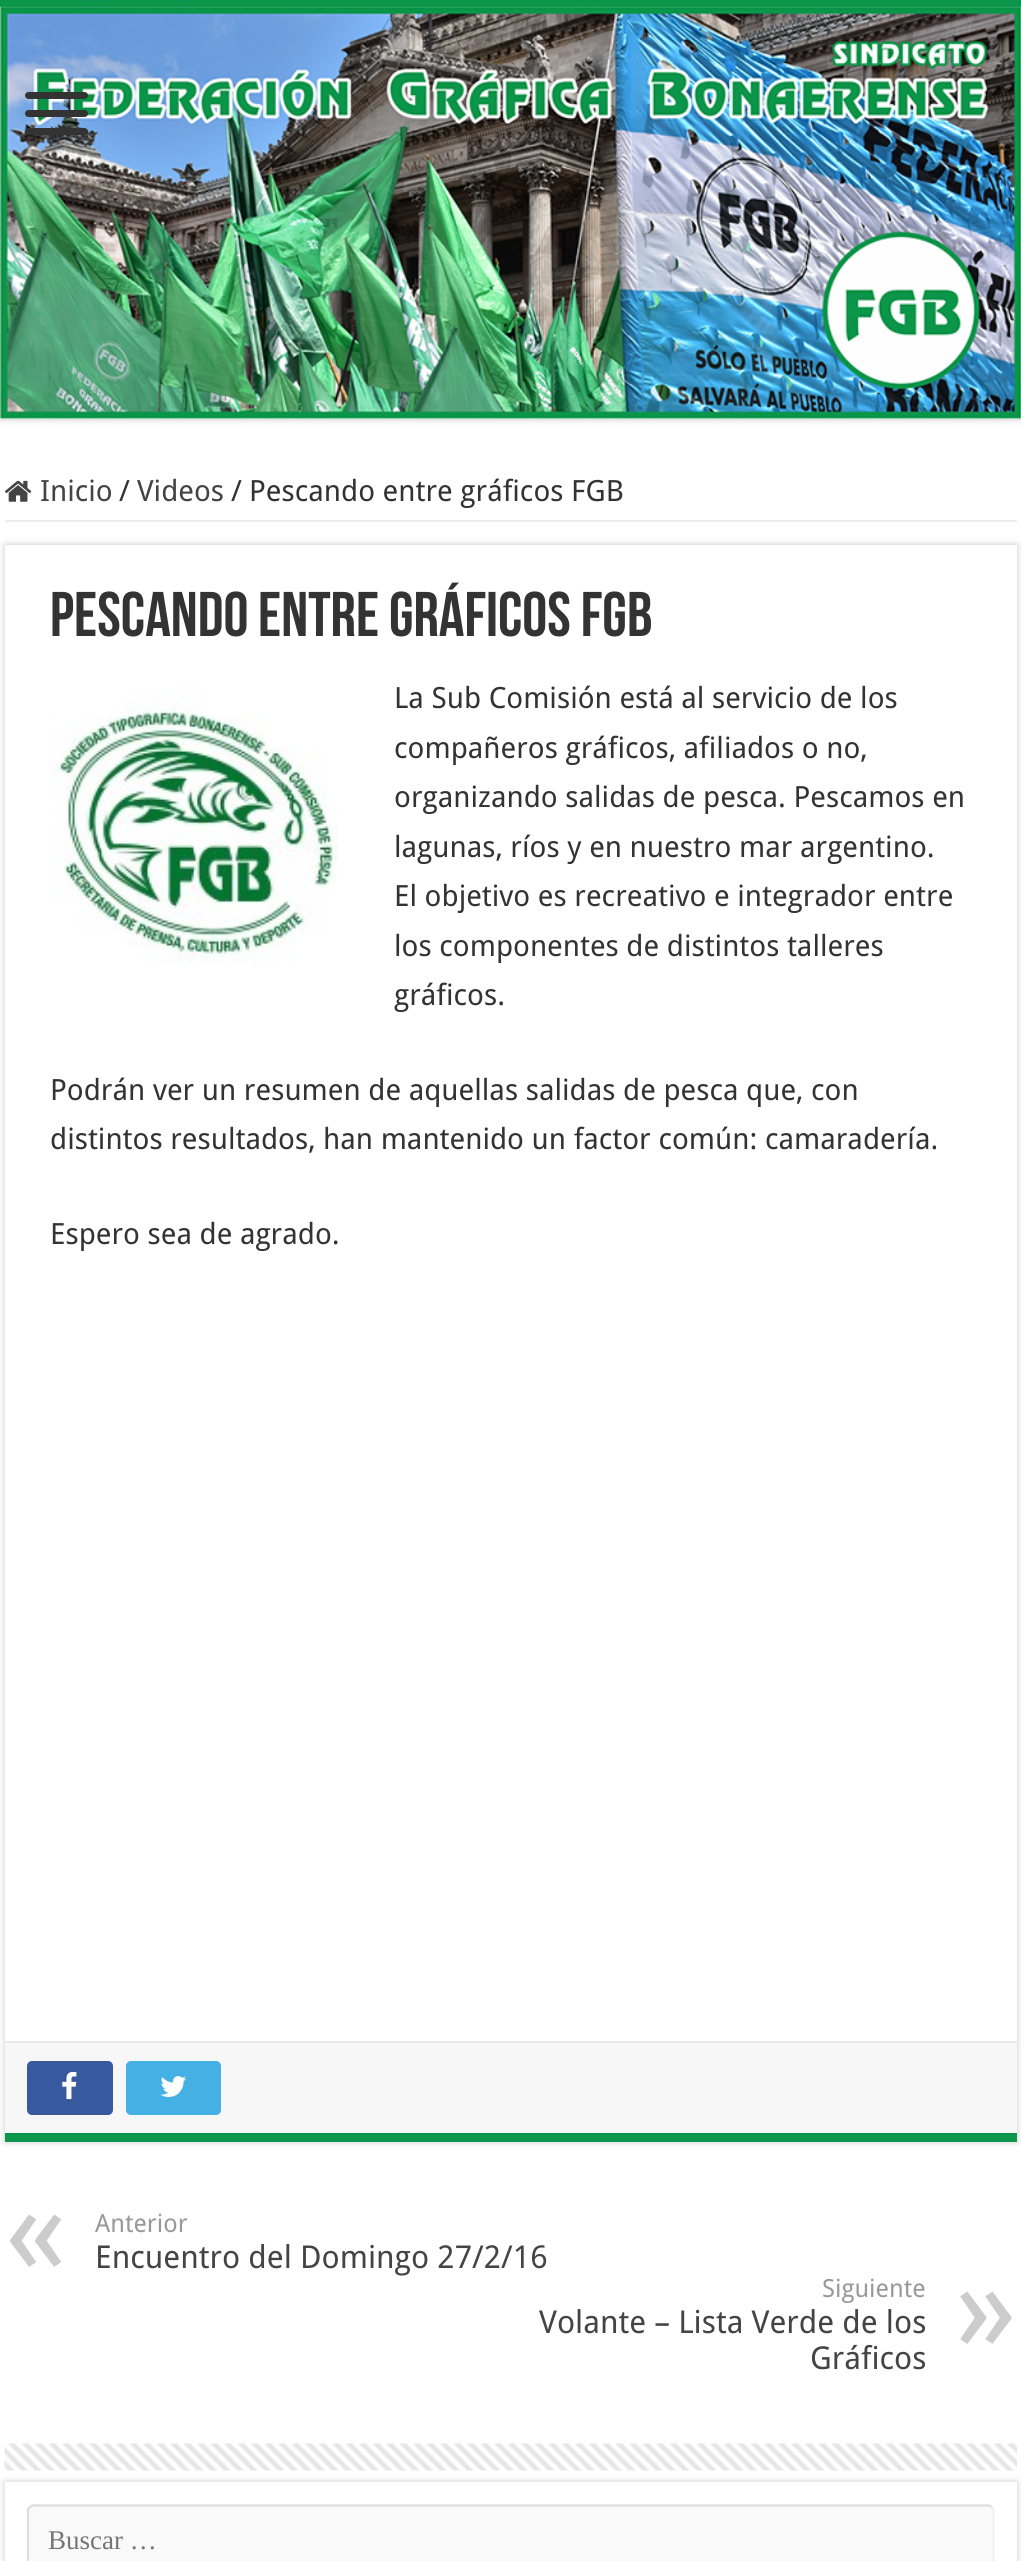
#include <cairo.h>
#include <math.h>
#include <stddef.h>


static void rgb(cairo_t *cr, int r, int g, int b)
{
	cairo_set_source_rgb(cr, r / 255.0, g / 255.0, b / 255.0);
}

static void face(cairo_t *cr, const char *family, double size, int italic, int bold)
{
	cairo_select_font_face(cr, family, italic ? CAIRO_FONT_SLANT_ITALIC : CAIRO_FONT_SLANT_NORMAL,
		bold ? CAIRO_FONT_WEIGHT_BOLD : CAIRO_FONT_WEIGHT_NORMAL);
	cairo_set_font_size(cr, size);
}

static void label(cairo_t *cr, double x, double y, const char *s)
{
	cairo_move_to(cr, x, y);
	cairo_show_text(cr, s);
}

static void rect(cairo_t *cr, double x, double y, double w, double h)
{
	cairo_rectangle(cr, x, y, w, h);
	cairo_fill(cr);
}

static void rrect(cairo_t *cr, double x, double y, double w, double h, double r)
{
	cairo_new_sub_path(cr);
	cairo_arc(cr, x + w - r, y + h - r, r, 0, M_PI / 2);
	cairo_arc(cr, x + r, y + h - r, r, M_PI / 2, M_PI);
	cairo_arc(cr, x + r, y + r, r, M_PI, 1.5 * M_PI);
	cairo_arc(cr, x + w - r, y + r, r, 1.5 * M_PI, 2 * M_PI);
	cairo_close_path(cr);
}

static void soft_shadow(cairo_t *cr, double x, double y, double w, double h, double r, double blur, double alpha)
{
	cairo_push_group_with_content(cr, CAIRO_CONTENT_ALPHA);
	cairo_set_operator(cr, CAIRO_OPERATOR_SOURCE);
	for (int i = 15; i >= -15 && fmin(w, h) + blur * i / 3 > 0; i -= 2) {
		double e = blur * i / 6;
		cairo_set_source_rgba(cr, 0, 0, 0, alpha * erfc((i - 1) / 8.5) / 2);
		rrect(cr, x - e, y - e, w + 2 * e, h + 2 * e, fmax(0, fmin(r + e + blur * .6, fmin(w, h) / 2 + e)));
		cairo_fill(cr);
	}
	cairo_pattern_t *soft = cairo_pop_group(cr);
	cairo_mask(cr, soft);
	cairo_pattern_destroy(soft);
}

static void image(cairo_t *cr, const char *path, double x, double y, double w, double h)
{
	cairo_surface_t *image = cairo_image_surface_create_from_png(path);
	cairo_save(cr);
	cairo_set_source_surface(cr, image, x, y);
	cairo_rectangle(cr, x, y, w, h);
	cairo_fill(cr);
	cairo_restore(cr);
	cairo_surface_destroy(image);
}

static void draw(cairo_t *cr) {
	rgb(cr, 255, 255, 255);
	cairo_paint(cr);
	rgb(cr, 202, 202, 202);
	soft_shadow(cr, 0, 0, 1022, 419, 0, 3.5, 1);
	rgb(cr, 255, 255, 255);
	rect(cr, 0, 418, 1021, 1);
	rgb(cr, 12, 150, 76);
	rect(cr, 0, 0, 1021, 7);
	image(cr, "image0.png", 0, 6, 1021, 413);
	rgb(cr, 51, 51, 51);
	rrect(cr, 25, 92, 63, 7, 3.5);
	cairo_fill(cr);
	rrect(cr, 25, 110, 63, 7, 3.5);
	cairo_fill(cr);
	rrect(cr, 25, 128, 63, 7, 3.5);
	cairo_fill(cr);
	rgb(cr, 238, 238, 238);
	rect(cr, 5, 520, 1012, 2);
	image(cr, "image1.png", 5, 480, 27, 22);
	face(cr, "Droid Sans", 29.25, 0, 0);
	rgb(cr, 68, 68, 68);
	label(cr, 40, 501, "Inicio");
	rgb(cr, 51, 51, 51);
	label(cr, 119, 501, "/");
	rgb(cr, 68, 68, 68);
	label(cr, 137, 501, "Videos");
	rgb(cr, 51, 51, 51);
	label(cr, 231, 501, "/");
	label(cr, 249, 501, "Pescando entre gráficos FGB");
	cairo_save(cr);
	cairo_set_fill_rule(cr, CAIRO_FILL_RULE_EVEN_ODD);
	cairo_new_path(cr);
	cairo_move_to(cr, 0, 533);
	cairo_line_to(cr, 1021, 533);
	cairo_line_to(cr, 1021, 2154);
	cairo_line_to(cr, 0, 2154);
	cairo_close_path(cr);
	cairo_move_to(cr, 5, 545);
	cairo_line_to(cr, 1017, 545);
	cairo_line_to(cr, 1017, 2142);
	cairo_line_to(cr, 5, 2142);
	cairo_close_path(cr);
	cairo_clip(cr);
	rgb(cr, 202, 202, 202);
	soft_shadow(cr, 5, 545, 1012, 1597, 0, 3.5, 1);
	cairo_restore(cr);
	rgb(cr, 12, 150, 76);
	rect(cr, 5, 2133, 1012, 9);
	face(cr, "Bebas Neue", 63, 0, 1);
	rgb(cr, 51, 51, 51);
	label(cr, 50, 636, "Pescando entre gráficos FGB");
	image(cr, "image2.png", 49, 686, 289, 278);
	face(cr, "Droid Sans", 29.25, 0, 0);
	label(cr, 394, 708, "La Sub Comisión está al servicio de los");
	label(cr, 394, 758, "compañeros gráficos, afiliados o no,");
	label(cr, 394, 807, "organizando salidas de pesca. Pescamos en");
	label(cr, 394, 857, "lagunas, ríos y en nuestro mar argentino.");
	label(cr, 394, 906, "El objetivo es recreativo e integrador entre");
	label(cr, 394, 956, "los componentes de distintos talleres");
	label(cr, 394, 1005, "gráficos.");
	label(cr, 50, 1100, "Podrán ver un resumen de aquellas salidas de pesca que, con");
	label(cr, 50, 1149, "distintos resultados, han mantenido un factor común: camaradería.");
	label(cr, 50, 1244, "Espero sea de agrado.");
	rgb(cr, 247, 247, 247);
	rect(cr, 5, 2043, 1012, 90);
	rgb(cr, 234, 234, 234);
	rect(cr, 5, 2041, 1012, 2);
	rgb(cr, 57, 89, 159);
	rrect(cr, 27, 2061, 86, 54, 5);
	cairo_fill(cr);
	image(cr, "image3.png", 62, 2071, 15, 29);
	rgb(cr, 69, 176, 227);
	rrect(cr, 126, 2061, 95, 54, 5);
	cairo_fill(cr);
	image(cr, "image4.png", 160, 2076, 26, 21);
	face(cr, "Droid Sans", 126, 0, 0);
	rgb(cr, 204, 204, 204);
	label(cr, 5, 2274, "«");
	face(cr, "Droid Sans", 25, 0, 0);
	rgb(cr, 153, 153, 153);
	label(cr, 95, 2232, "Anterior");
	face(cr, "Droid Sans", 31.5, 0, 0);
	rgb(cr, 68, 68, 68);
	label(cr, 95, 2268, "Encuentro del Domingo 27/2/16");
	face(cr, "Droid Sans", 25, 0, 0);
	rgb(cr, 153, 153, 153);
	label(cr, 822, 2297, "Siguiente");
	face(cr, "Droid Sans", 126, 0, 0);
	rgb(cr, 204, 204, 204);
	label(cr, 955, 2351, "»");
	face(cr, "Droid Sans", 31.5, 0, 0);
	rgb(cr, 68, 68, 68);
	label(cr, 539, 2333, "Volante – Lista Verde de los");
	label(cr, 810, 2369, "Gráficos");
	cairo_save(cr);
	cairo_set_fill_rule(cr, CAIRO_FILL_RULE_EVEN_ODD);
	cairo_new_path(cr);
	cairo_move_to(cr, 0, 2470);
	cairo_line_to(cr, 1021, 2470);
	cairo_line_to(cr, 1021, 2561);
	cairo_line_to(cr, 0, 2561);
	cairo_close_path(cr);
	cairo_move_to(cr, 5, 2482);
	cairo_line_to(cr, 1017, 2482);
	cairo_line_to(cr, 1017, 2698);
	cairo_line_to(cr, 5, 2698);
	cairo_close_path(cr);
	cairo_clip(cr);
	rgb(cr, 202, 202, 202);
	soft_shadow(cr, 5, 2482, 1012, 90, 0, 3.5, 1);
	cairo_restore(cr);
	image(cr, "image5.png", 4, 2443, 1013, 28);
	rgb(cr, 249, 249, 249);
	rrect(cr, 27, 2504, 968, 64, 7);
	cairo_fill(cr);
	cairo_new_path(cr);
	cairo_move_to(cr, 991.5, 2507);
	cairo_curve_to(cr, 993, 2508, 993.5, 2509.5, 993.5, 2511);
	cairo_line_to(cr, 993.5, 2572);
	cairo_curve_to(cr, 993.5, 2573, 993, 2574.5, 991.5, 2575.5);
	cairo_curve_to(cr, 990.5, 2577, 989, 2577.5, 988, 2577.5);
	cairo_line_to(cr, 34, 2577.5);
	cairo_curve_to(cr, 32.5, 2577.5, 31, 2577, 30, 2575.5);
	rgb(cr, 241, 241, 241);
	cairo_set_line_width(cr, 2.2);
	cairo_stroke(cr);
	cairo_new_path(cr);
	cairo_move_to(cr, 30, 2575.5);
	cairo_curve_to(cr, 28.5, 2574.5, 28, 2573, 28, 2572);
	cairo_line_to(cr, 28, 2511);
	cairo_curve_to(cr, 28, 2509.5, 28.5, 2508, 30, 2507);
	cairo_curve_to(cr, 31, 2506, 32.5, 2505.5, 34, 2505.5);
	cairo_line_to(cr, 988, 2505.5);
	cairo_curve_to(cr, 989, 2505.5, 990.5, 2506, 991.5, 2507);
	rgb(cr, 221, 221, 221);
	cairo_stroke(cr);
	face(cr, "Liberation Serif", 27, 0, 0);
	rgb(cr, 117, 117, 117);
	label(cr, 48, 2549, "Buscar …");
}

int main(void) {
	cairo_surface_t *surface = cairo_image_surface_create(CAIRO_FORMAT_RGB24, 1021, 2561);
	cairo_t *cr = cairo_create(surface);
	cairo_font_options_t *options = cairo_font_options_create();
	cairo_font_options_set_hint_metrics(options, CAIRO_HINT_METRICS_OFF);
	cairo_font_options_set_hint_style(options, CAIRO_HINT_STYLE_NONE);
	cairo_set_font_options(cr, options);
	cairo_set_miter_limit(cr, 4);
	draw(cr);
	cairo_surface_write_to_png(surface, "render.png");
	cairo_font_options_destroy(options);
	cairo_destroy(cr);
	cairo_surface_destroy(surface);
	return 0;
}
